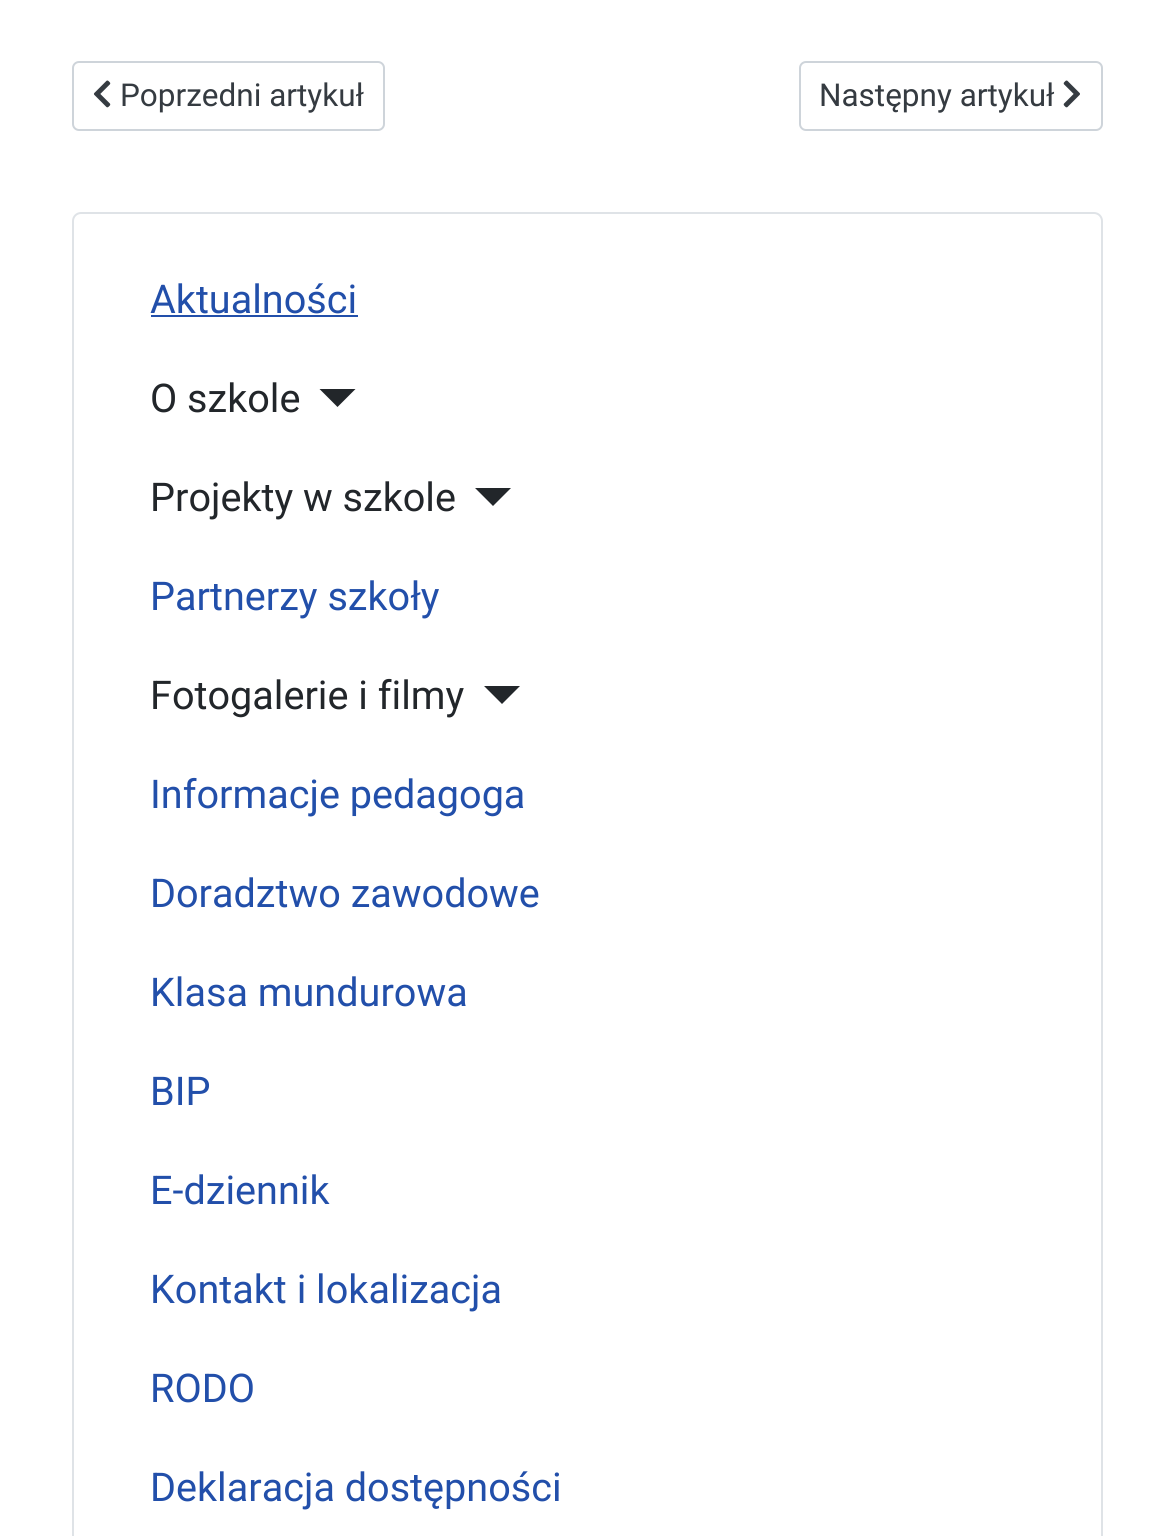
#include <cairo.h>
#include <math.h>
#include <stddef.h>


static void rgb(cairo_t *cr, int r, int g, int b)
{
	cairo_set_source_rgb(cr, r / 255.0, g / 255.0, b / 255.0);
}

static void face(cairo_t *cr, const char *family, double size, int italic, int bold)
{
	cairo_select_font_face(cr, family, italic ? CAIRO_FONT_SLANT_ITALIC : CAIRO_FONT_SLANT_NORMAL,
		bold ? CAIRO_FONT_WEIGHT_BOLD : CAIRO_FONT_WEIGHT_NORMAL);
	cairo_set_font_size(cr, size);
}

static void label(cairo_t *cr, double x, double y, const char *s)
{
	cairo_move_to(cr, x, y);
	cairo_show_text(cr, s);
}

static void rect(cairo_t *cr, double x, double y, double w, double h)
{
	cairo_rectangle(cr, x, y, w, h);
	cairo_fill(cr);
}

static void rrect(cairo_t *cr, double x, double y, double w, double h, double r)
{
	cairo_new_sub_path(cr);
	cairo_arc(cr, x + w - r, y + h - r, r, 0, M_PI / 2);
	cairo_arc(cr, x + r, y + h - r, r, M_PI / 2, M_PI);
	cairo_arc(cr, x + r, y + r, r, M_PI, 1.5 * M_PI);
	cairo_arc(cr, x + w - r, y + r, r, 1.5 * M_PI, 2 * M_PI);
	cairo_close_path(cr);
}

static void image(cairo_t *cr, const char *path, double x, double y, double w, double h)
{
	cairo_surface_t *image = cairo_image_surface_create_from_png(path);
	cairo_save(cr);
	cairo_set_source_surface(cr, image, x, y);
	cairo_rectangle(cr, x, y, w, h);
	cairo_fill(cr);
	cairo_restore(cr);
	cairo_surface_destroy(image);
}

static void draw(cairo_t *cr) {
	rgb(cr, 255, 255, 255);
	cairo_paint(cr);
	rrect(cr, 73, 62, 311, 68, 6);
	rgb(cr, 206, 212, 218);
	cairo_stroke(cr);
	image(cr, "image0.png", 93, 80, 18, 28);
	face(cr, "Roboto", 31.5, 0, 0);
	rgb(cr, 53, 59, 65);
	label(cr, 120, 106, "Poprzedni artykuł");
	rrect(cr, 800, 62, 302, 68, 6);
	rgb(cr, 206, 212, 218);
	cairo_stroke(cr);
	rgb(cr, 53, 59, 65);
	label(cr, 819, 106, "Następny artykuł");
	image(cr, "image1.png", 1063, 80, 17, 28);
	rrect(cr, 73, 213, 1029, 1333, 8);
	rgb(cr, 223, 227, 231);
	cairo_stroke(cr);
	face(cr, "Roboto", 39.6, 0, 0);
	rgb(cr, 34, 79, 170);
	label(cr, 150, 313, "Aktualności");
	rect(cr, 151, 315, 207, 2);
	rgb(cr, 34, 38, 42);
	label(cr, 150, 412, "O szkole");
	cairo_new_path(cr);
	cairo_move_to(cr, 319.5, 389);
	cairo_line_to(cr, 355.5, 389);
	cairo_line_to(cr, 337.5, 407);
	cairo_close_path(cr);
	cairo_fill(cr);
	label(cr, 150, 511, "Projekty w szkole");
	cairo_new_path(cr);
	cairo_move_to(cr, 475, 488);
	cairo_line_to(cr, 511, 488);
	cairo_line_to(cr, 493, 506);
	cairo_close_path(cr);
	cairo_fill(cr);
	rgb(cr, 34, 79, 170);
	label(cr, 150, 610, "Partnerzy szkoły");
	rgb(cr, 34, 38, 42);
	label(cr, 150, 709, "Fotogalerie i filmy");
	cairo_new_path(cr);
	cairo_move_to(cr, 484, 686);
	cairo_line_to(cr, 520, 686);
	cairo_line_to(cr, 502, 704);
	cairo_close_path(cr);
	cairo_fill(cr);
	rgb(cr, 34, 79, 170);
	label(cr, 150, 808, "Informacje pedagoga");
	label(cr, 150, 907, "Doradztwo zawodowe");
	label(cr, 150, 1006, "Klasa mundurowa");
	label(cr, 150, 1105, "BIP");
	label(cr, 150, 1204, "E-dziennik");
	label(cr, 150, 1303, "Kontakt i lokalizacja");
	label(cr, 150, 1402, "RODO");
	label(cr, 150, 1501, "Deklaracja dostępności");
}

int main(void) {
	cairo_surface_t *surface = cairo_image_surface_create(CAIRO_FORMAT_RGB24, 1173, 1536);
	cairo_t *cr = cairo_create(surface);
	cairo_font_options_t *options = cairo_font_options_create();
	cairo_font_options_set_hint_metrics(options, CAIRO_HINT_METRICS_OFF);
	cairo_font_options_set_hint_style(options, CAIRO_HINT_STYLE_NONE);
	cairo_set_font_options(cr, options);
	cairo_set_miter_limit(cr, 4);
	draw(cr);
	cairo_surface_write_to_png(surface, "render.png");
	cairo_font_options_destroy(options);
	cairo_destroy(cr);
	cairo_surface_destroy(surface);
	return 0;
}
